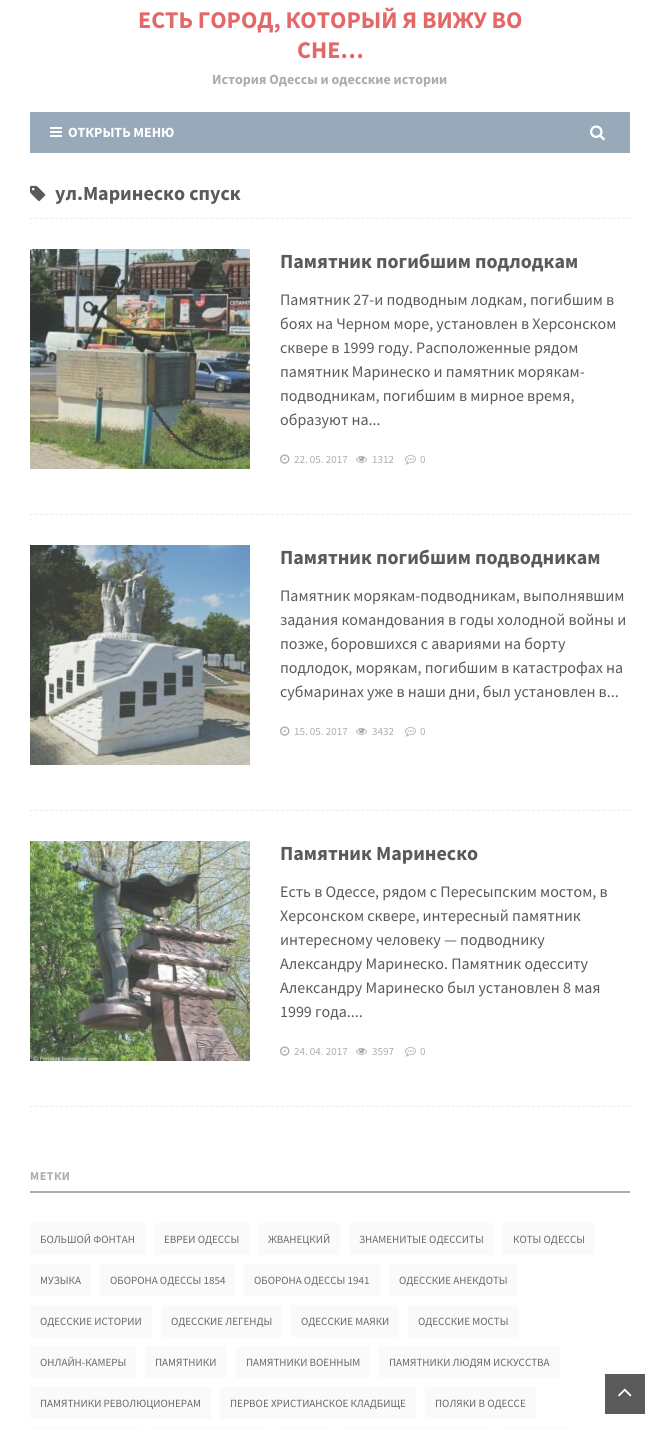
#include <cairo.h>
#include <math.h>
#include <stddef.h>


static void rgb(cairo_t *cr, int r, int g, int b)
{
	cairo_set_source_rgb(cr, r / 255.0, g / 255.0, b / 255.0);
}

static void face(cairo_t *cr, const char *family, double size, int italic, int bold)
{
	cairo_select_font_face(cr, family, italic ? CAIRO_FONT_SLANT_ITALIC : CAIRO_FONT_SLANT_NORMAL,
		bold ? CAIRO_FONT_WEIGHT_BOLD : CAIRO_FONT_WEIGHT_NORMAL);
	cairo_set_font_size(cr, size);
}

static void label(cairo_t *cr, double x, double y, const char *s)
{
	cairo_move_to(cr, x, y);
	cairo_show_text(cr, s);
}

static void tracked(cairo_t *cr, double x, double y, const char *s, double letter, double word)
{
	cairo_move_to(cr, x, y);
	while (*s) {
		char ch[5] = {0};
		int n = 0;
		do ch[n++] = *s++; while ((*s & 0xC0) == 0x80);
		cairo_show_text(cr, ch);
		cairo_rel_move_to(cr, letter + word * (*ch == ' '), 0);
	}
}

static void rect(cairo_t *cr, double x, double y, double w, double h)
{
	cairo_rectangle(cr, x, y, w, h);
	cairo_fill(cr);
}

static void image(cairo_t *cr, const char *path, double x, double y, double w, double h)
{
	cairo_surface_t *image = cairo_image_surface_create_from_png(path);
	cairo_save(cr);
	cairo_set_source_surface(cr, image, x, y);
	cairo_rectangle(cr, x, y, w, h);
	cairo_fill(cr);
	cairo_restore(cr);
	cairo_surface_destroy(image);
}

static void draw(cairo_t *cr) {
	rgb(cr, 255, 255, 255);
	cairo_paint(cr);
	face(cr, "Source Sans Pro", 24, 0, 1);
	rgb(cr, 227, 104, 104);
	label(cr, 138, 28, "ЕСТЬ ГОРОД, КОТОРЫЙ Я ВИЖУ ВО");
	label(cr, 297, 58, "СНЕ…");
	face(cr, "Source Sans Pro", 14, 0, 1);
	rgb(cr, 172, 172, 172);
	label(cr, 212, 84, "История Одессы и одесские истории");
	rgb(cr, 152, 169, 185);
	rect(cr, 30, 112, 600, 41);
	image(cr, "image0.png", 50, 127, 12, 10);
	rgb(cr, 255, 255, 255);
	label(cr, 68, 137, "ОТКРЫТЬ МЕНЮ");
	image(cr, "image1.png", 590, 125, 15, 16);
	image(cr, "image2.png", 30, 185, 16, 16);
	face(cr, "Source Sans Pro", 20, 0, 1);
	rgb(cr, 90, 90, 90);
	label(cr, 55, 200, "ул.Маринеско спуск");
	cairo_new_path(cr);
	cairo_move_to(cr, 30, 218.5);
	cairo_line_to(cr, 630, 218.5);
	rgb(cr, 235, 235, 235);
	cairo_set_line_width(cr, 1);
	cairo_set_dash(cr, (double[]){3, 2.02}, 2, 0);
	cairo_stroke(cr);
	cairo_new_path(cr);
	cairo_move_to(cr, 30, 514.5);
	cairo_line_to(cr, 630, 514.5);
	cairo_stroke(cr);
	image(cr, "image3.png", 30, 249, 220, 220);
	rgb(cr, 90, 90, 90);
	label(cr, 280, 268, "Памятник погибшим подлодкам");
	face(cr, "Source Sans Pro", 16, 0, 0);
	label(cr, 280, 305, "Памятник 27-и подводным лодкам, погибшим в");
	label(cr, 280, 329, "боях на Черном море, установлен в Херсонском");
	label(cr, 280, 353, "сквере в 1999 году. Расположенные рядом");
	label(cr, 280, 377, "памятник Маринеско и памятник морякам-");
	label(cr, 280, 401, "подводникам, погибшим в мирное время,");
	label(cr, 280, 425, "образуют на...");
	image(cr, "image4.png", 280, 454, 10, 10);
	face(cr, "Source Sans Pro", 11, 0, 0);
	rgb(cr, 172, 172, 172);
	label(cr, 294, 463, "22. 05. 2017");
	image(cr, "image5.png", 356, 456, 11, 7);
	label(cr, 372, 463, "1312");
	image(cr, "image6.png", 405, 455, 11, 10);
	label(cr, 420, 463, "0");
	cairo_new_path(cr);
	cairo_move_to(cr, 30, 810.5);
	cairo_line_to(cr, 630, 810.5);
	rgb(cr, 235, 235, 235);
	cairo_stroke(cr);
	image(cr, "image7.png", 30, 545, 220, 220);
	face(cr, "Source Sans Pro", 20, 0, 1);
	rgb(cr, 90, 90, 90);
	label(cr, 280, 564, "Памятник погибшим подводникам");
	face(cr, "Source Sans Pro", 16, 0, 0);
	label(cr, 280, 601, "Памятник морякам-подводникам, выполнявшим");
	label(cr, 280, 625, "задания командования в годы холодной войны и");
	label(cr, 280, 649, "позже, боровшихся с авариями на борту");
	label(cr, 280, 673, "подлодок, морякам, погибшим в катастрофах на");
	label(cr, 280, 697, "субмаринах уже в наши дни, был установлен в...");
	image(cr, "image4.png", 280, 726, 10, 10);
	face(cr, "Source Sans Pro", 11, 0, 0);
	rgb(cr, 172, 172, 172);
	label(cr, 294, 735, "15. 05. 2017");
	image(cr, "image5.png", 356, 728, 11, 7);
	label(cr, 372, 735, "3432");
	image(cr, "image6.png", 405, 727, 11, 10);
	label(cr, 420, 735, "0");
	cairo_new_path(cr);
	cairo_move_to(cr, 30, 1106.5);
	cairo_line_to(cr, 630, 1106.5);
	rgb(cr, 235, 235, 235);
	cairo_stroke(cr);
	image(cr, "image8.png", 30, 841, 220, 220);
	face(cr, "Source Sans Pro", 20, 0, 1);
	rgb(cr, 90, 90, 90);
	label(cr, 280, 860, "Памятник Маринеско");
	face(cr, "Source Sans Pro", 16, 0, 0);
	label(cr, 280, 897, "Есть в Одессе, рядом с Пересыпским мостом, в");
	label(cr, 280, 921, "Херсонском сквере, интересный памятник");
	label(cr, 280, 945, "интересному человеку — подводнику");
	label(cr, 280, 969, "Александру Маринеско. Памятник одесситу");
	label(cr, 280, 993, "Александру Маринеско был установлен 8 мая");
	label(cr, 280, 1017, "1999 года....");
	image(cr, "image4.png", 280, 1046, 10, 10);
	face(cr, "Source Sans Pro", 11, 0, 0);
	rgb(cr, 172, 172, 172);
	label(cr, 294, 1055, "24. 04. 2017");
	image(cr, "image5.png", 356, 1048, 11, 7);
	label(cr, 372, 1055, "3597");
	image(cr, "image6.png", 405, 1047, 11, 10);
	label(cr, 420, 1055, "0");
	rect(cr, 30, 1191, 600, 2);
	face(cr, "Source Sans Pro", 12, 0, 1);
	tracked(cr, 30, 1180, "МЕТКИ", 0.5, 0);
	rgb(cr, 250, 250, 250);
	rect(cr, 30, 1223, 115, 32);
	face(cr, "Source Sans Pro", 11, 0, 0);
	rgb(cr, 104, 104, 104);
	label(cr, 40, 1243, "БОЛЬШОЙ ФОНТАН");
	rgb(cr, 250, 250, 250);
	rect(cr, 154, 1223, 95, 32);
	rgb(cr, 104, 104, 104);
	label(cr, 164, 1243, "ЕВРЕИ ОДЕССЫ");
	rgb(cr, 250, 250, 250);
	rect(cr, 258, 1223, 82, 32);
	rgb(cr, 104, 104, 104);
	label(cr, 268, 1243, "ЖВАНЕЦКИЙ");
	rgb(cr, 250, 250, 250);
	rect(cr, 349, 1223, 145, 32);
	rgb(cr, 104, 104, 104);
	label(cr, 359, 1243, "ЗНАМЕНИТЫЕ ОДЕССИТЫ");
	rgb(cr, 250, 250, 250);
	rect(cr, 503, 1223, 92, 32);
	rgb(cr, 104, 104, 104);
	label(cr, 513, 1243, "КОТЫ ОДЕССЫ");
	rgb(cr, 250, 250, 250);
	rect(cr, 30, 1264, 61, 32);
	rgb(cr, 104, 104, 104);
	label(cr, 40, 1284, "МУЗЫКА");
	rgb(cr, 250, 250, 250);
	rect(cr, 100, 1264, 135, 32);
	rgb(cr, 104, 104, 104);
	label(cr, 110, 1284, "ОБОРОНА ОДЕССЫ 1854");
	rgb(cr, 250, 250, 250);
	rect(cr, 244, 1264, 136, 32);
	rgb(cr, 104, 104, 104);
	label(cr, 254, 1284, "ОБОРОНА ОДЕССЫ 1941");
	rgb(cr, 250, 250, 250);
	rect(cr, 389, 1264, 128, 32);
	rgb(cr, 104, 104, 104);
	label(cr, 399, 1284, "ОДЕССКИЕ АНЕКДОТЫ");
	rgb(cr, 250, 250, 250);
	rect(cr, 30, 1305, 122, 32);
	rgb(cr, 104, 104, 104);
	label(cr, 40, 1325, "ОДЕССКИЕ ИСТОРИИ");
	rgb(cr, 250, 250, 250);
	rect(cr, 161, 1305, 121, 32);
	rgb(cr, 104, 104, 104);
	label(cr, 171, 1325, "ОДЕССКИЕ ЛЕГЕНДЫ");
	rgb(cr, 250, 250, 250);
	rect(cr, 291, 1305, 108, 32);
	rgb(cr, 104, 104, 104);
	label(cr, 301, 1325, "ОДЕССКИЕ МАЯКИ");
	rgb(cr, 250, 250, 250);
	rect(cr, 408, 1305, 111, 32);
	rgb(cr, 104, 104, 104);
	label(cr, 418, 1325, "ОДЕССКИЕ МОСТЫ");
	rgb(cr, 250, 250, 250);
	rect(cr, 30, 1346, 106, 32);
	rgb(cr, 104, 104, 104);
	label(cr, 40, 1366, "ОНЛАЙН-КАМЕРЫ");
	rgb(cr, 250, 250, 250);
	rect(cr, 145, 1346, 82, 32);
	rgb(cr, 104, 104, 104);
	label(cr, 155, 1366, "ПАМЯТНИКИ");
	rgb(cr, 250, 250, 250);
	rect(cr, 236, 1346, 134, 32);
	rgb(cr, 104, 104, 104);
	label(cr, 246, 1366, "ПАМЯТНИКИ ВОЕННЫМ");
	rgb(cr, 250, 250, 250);
	rect(cr, 379, 1346, 181, 32);
	rgb(cr, 104, 104, 104);
	label(cr, 389, 1366, "ПАМЯТНИКИ ЛЮДЯМ ИСКУССТВА");
	rgb(cr, 250, 250, 250);
	rect(cr, 30, 1387, 181, 32);
	rgb(cr, 104, 104, 104);
	label(cr, 40, 1407, "ПАМЯТНИКИ РЕВОЛЮЦИОНЕРАМ");
	rgb(cr, 250, 250, 250);
	rect(cr, 220, 1387, 196, 32);
	rgb(cr, 104, 104, 104);
	label(cr, 230, 1407, "ПЕРВОЕ ХРИСТИАНСКОЕ КЛАДБИЩЕ");
	rgb(cr, 250, 250, 250);
	rect(cr, 425, 1387, 111, 32);
	rgb(cr, 104, 104, 104);
	label(cr, 435, 1407, "ПОЛЯКИ В ОДЕССЕ");
	rgb(cr, 250, 250, 250);
	rect(cr, 30, 1428, 112, 1);
	rect(cr, 151, 1428, 115, 1);
	rect(cr, 275, 1428, 57, 1);
	rect(cr, 341, 1428, 149, 1);
	rect(cr, 499, 1428, 70, 1);
	rgb(cr, 90, 90, 90);
	rect(cr, 605, 1374, 40, 40);
	image(cr, "image9.png", 618, 1388, 14, 9);
}

int main(void) {
	cairo_surface_t *surface = cairo_image_surface_create(CAIRO_FORMAT_RGB24, 660, 1429);
	cairo_t *cr = cairo_create(surface);
	cairo_font_options_t *options = cairo_font_options_create();
	cairo_font_options_set_hint_metrics(options, CAIRO_HINT_METRICS_OFF);
	cairo_font_options_set_hint_style(options, CAIRO_HINT_STYLE_NONE);
	cairo_set_font_options(cr, options);
	cairo_set_miter_limit(cr, 4);
	draw(cr);
	cairo_surface_write_to_png(surface, "render.png");
	cairo_font_options_destroy(options);
	cairo_destroy(cr);
	cairo_surface_destroy(surface);
	return 0;
}
